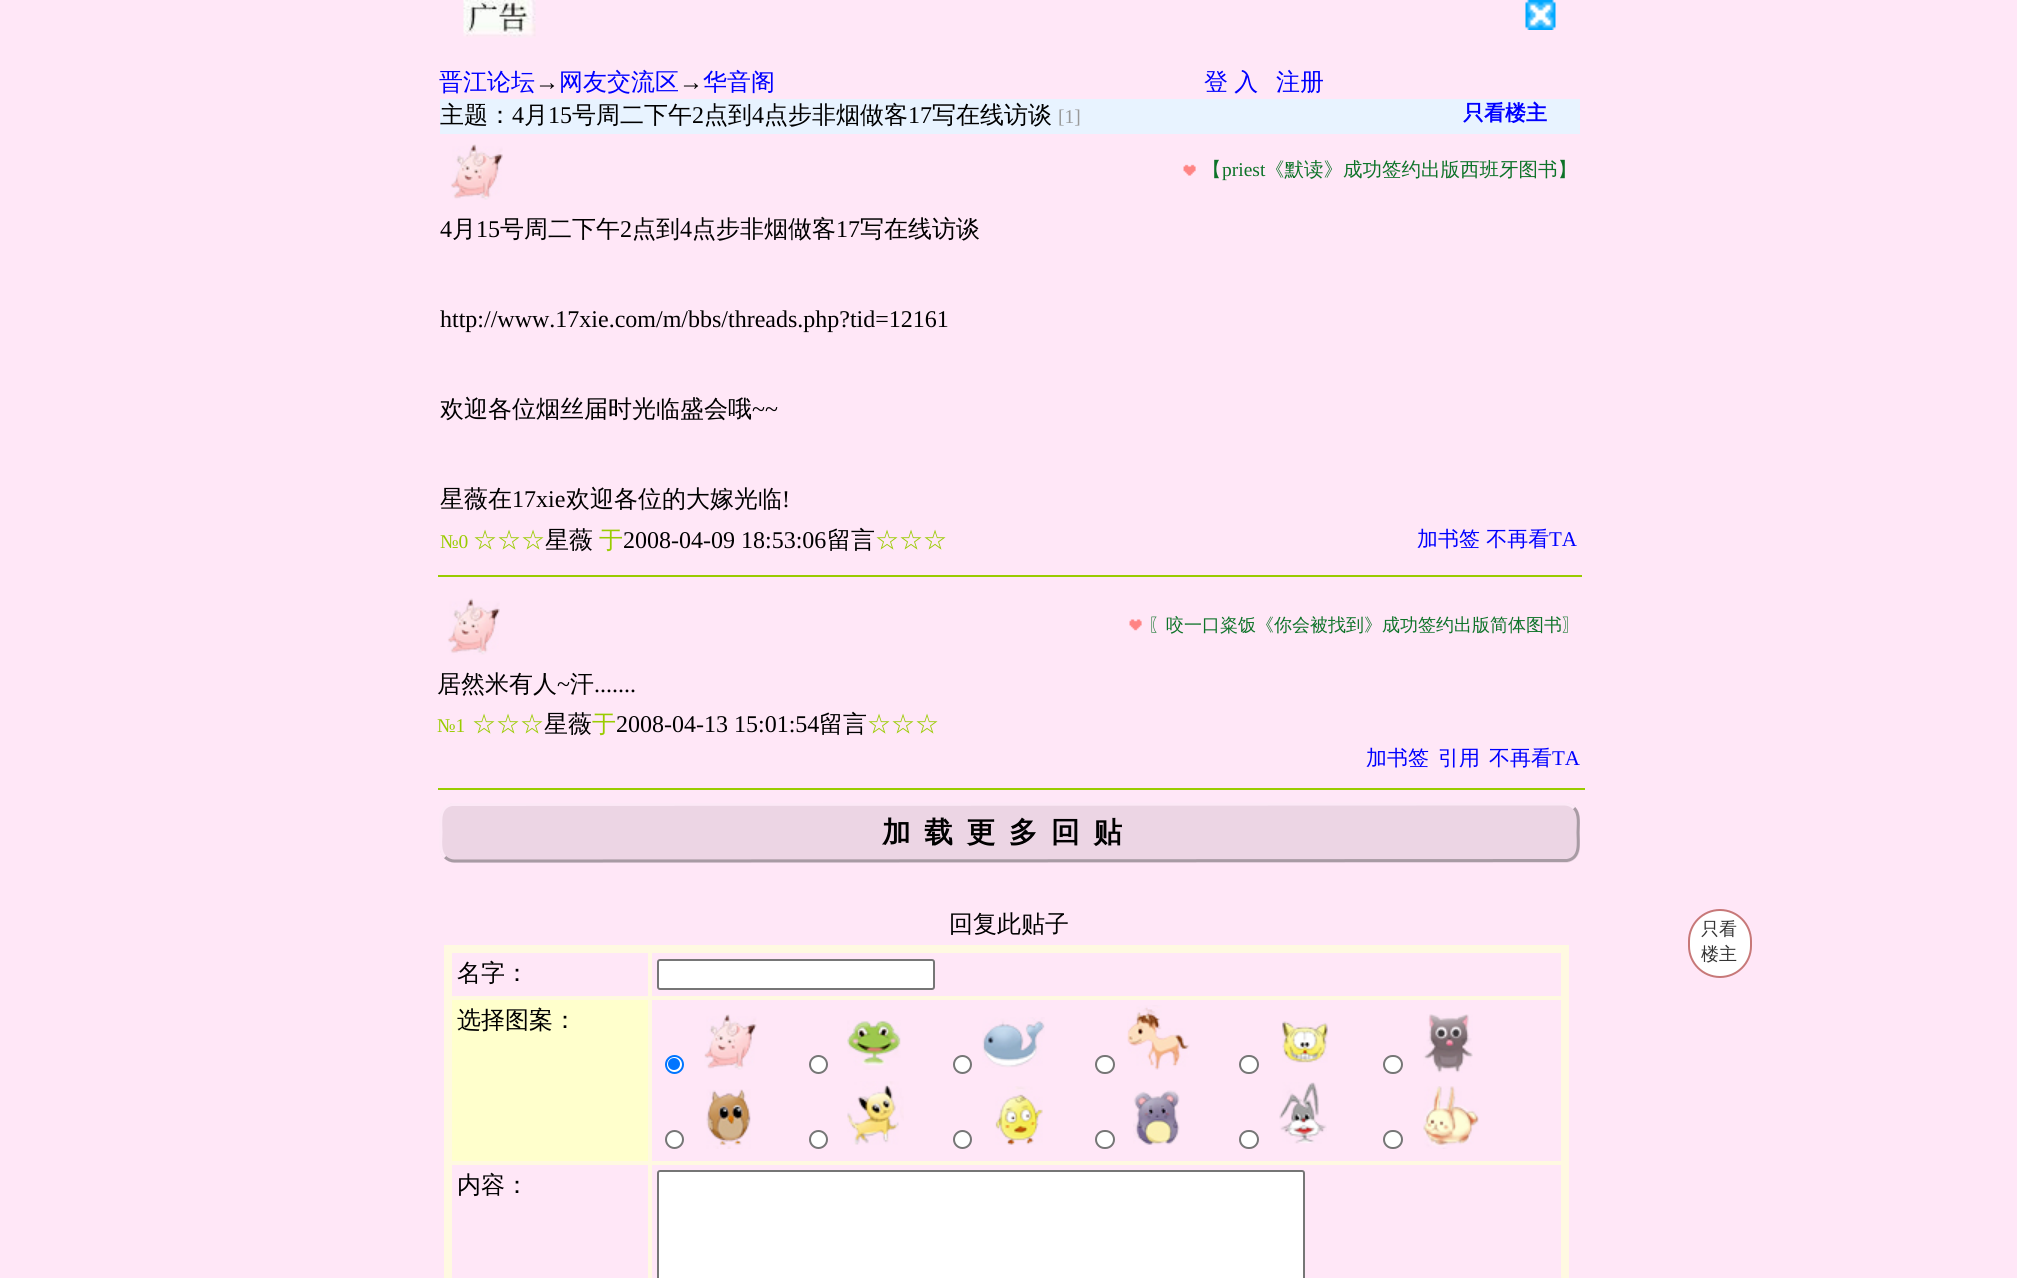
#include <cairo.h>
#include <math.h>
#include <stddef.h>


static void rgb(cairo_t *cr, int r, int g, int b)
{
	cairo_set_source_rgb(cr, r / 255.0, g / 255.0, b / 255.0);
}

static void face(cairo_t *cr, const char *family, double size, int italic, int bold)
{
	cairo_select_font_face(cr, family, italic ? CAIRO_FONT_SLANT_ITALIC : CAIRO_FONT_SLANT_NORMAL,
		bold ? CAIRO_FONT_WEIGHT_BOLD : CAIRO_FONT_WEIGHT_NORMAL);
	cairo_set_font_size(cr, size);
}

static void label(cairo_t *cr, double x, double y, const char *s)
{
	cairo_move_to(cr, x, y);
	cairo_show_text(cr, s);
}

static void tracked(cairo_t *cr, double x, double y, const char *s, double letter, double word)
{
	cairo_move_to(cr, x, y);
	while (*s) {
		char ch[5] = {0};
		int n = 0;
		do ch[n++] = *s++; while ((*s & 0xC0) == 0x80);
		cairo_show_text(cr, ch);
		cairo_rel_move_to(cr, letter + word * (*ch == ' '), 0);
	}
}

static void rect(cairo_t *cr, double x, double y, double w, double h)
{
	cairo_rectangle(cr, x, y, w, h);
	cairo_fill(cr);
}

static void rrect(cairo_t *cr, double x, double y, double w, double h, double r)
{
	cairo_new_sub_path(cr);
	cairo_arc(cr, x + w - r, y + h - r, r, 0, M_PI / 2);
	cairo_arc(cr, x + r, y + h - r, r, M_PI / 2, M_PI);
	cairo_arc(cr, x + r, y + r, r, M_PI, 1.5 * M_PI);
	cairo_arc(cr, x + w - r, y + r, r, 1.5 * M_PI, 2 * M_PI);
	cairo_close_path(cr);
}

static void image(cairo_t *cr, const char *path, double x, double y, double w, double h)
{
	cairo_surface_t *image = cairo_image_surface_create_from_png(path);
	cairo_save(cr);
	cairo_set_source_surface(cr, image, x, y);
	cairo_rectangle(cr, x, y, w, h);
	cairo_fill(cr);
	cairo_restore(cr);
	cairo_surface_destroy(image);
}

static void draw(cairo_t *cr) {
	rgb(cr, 255, 231, 247);
	cairo_paint(cr);
	image(cr, "image0.png", 463, 0, 73, 38);
	image(cr, "image1.png", 1525, 0, 31, 30);
	face(cr, "WenQuanYi Zen Hei Medium", 24, 0, 0);
	rgb(cr, 0, 0, 255);
	label(cr, 439, 90, "晋江论坛");
	face(cr, "Liberation Serif", 24, 0, 0);
	rgb(cr, 0, 0, 0);
	label(cr, 535, 90, "→");
	face(cr, "WenQuanYi Zen Hei Medium", 24, 0, 0);
	rgb(cr, 0, 0, 255);
	label(cr, 559, 90, "网友交流区");
	face(cr, "Liberation Serif", 24, 0, 0);
	rgb(cr, 0, 0, 0);
	label(cr, 679, 90, "→");
	face(cr, "WenQuanYi Zen Hei Medium", 24, 0, 0);
	rgb(cr, 0, 0, 255);
	label(cr, 703, 90, "华音阁");
	tracked(cr, 1204, 90, "登 入", 0, -1);
	label(cr, 1276, 90, "注册");
	rgb(cr, 232, 243, 255);
	rect(cr, 440, 99, 1140, 35);
	rgb(cr, 0, 0, 0);
	label(cr, 440, 123, "主题：");
	face(cr, "Liberation Serif", 24, 0, 0);
	label(cr, 512, 123, "4");
	face(cr, "WenQuanYi Zen Hei Medium", 24, 0, 0);
	label(cr, 524, 123, "月");
	face(cr, "Liberation Serif", 24, 0, 0);
	label(cr, 548, 123, "15");
	face(cr, "WenQuanYi Zen Hei Medium", 24, 0, 0);
	label(cr, 572, 123, "号周二下午");
	face(cr, "Liberation Serif", 24, 0, 0);
	label(cr, 692, 123, "2");
	face(cr, "WenQuanYi Zen Hei Medium", 24, 0, 0);
	label(cr, 704, 123, "点到");
	face(cr, "Liberation Serif", 24, 0, 0);
	label(cr, 752, 123, "4");
	face(cr, "WenQuanYi Zen Hei Medium", 24, 0, 0);
	label(cr, 764, 123, "点步非烟做客");
	face(cr, "Liberation Serif", 24, 0, 0);
	label(cr, 908, 123, "17");
	face(cr, "WenQuanYi Zen Hei Medium", 24, 0, 0);
	label(cr, 932, 123, "写在线访谈");
	face(cr, "Liberation Serif", 19.5, 0, 0);
	rgb(cr, 153, 153, 153);
	label(cr, 1058, 123, "[1]");
	face(cr, "WenQuanYi Zen Hei", 21, 0, 1);
	rgb(cr, 0, 0, 255);
	label(cr, 1463, 120, "只看楼主");
	image(cr, "image2.png", 450, 144, 53, 56);
	image(cr, "image3.png", 1183, 164, 13, 12);
	face(cr, "WenQuanYi Zen Hei Medium", 19.5, 0, 0);
	rgb(cr, 13, 115, 40);
	label(cr, 1202, 176, "【");
	face(cr, "Liberation Serif", 19.5, 0, 0);
	label(cr, 1222, 176, "priest");
	face(cr, "WenQuanYi Zen Hei Medium", 19.5, 0, 0);
	label(cr, 1265, 176, "《默读》成功签约出版西班牙图书】");
	face(cr, "Liberation Serif", 24, 0, 0);
	rgb(cr, 0, 0, 0);
	label(cr, 440, 237, "4");
	face(cr, "WenQuanYi Zen Hei Medium", 24, 0, 0);
	label(cr, 452, 237, "月");
	face(cr, "Liberation Serif", 24, 0, 0);
	label(cr, 476, 237, "15");
	face(cr, "WenQuanYi Zen Hei Medium", 24, 0, 0);
	label(cr, 500, 237, "号周二下午");
	face(cr, "Liberation Serif", 24, 0, 0);
	label(cr, 620, 237, "2");
	face(cr, "WenQuanYi Zen Hei Medium", 24, 0, 0);
	label(cr, 632, 237, "点到");
	face(cr, "Liberation Serif", 24, 0, 0);
	label(cr, 680, 237, "4");
	face(cr, "WenQuanYi Zen Hei Medium", 24, 0, 0);
	label(cr, 692, 237, "点步非烟做客");
	face(cr, "Liberation Serif", 24, 0, 0);
	label(cr, 836, 237, "17");
	face(cr, "WenQuanYi Zen Hei Medium", 24, 0, 0);
	label(cr, 860, 237, "写在线访谈");
	face(cr, "Liberation Serif", 24, 0, 0);
	label(cr, 440, 327, "http://www.17xie.com/m/bbs/threads.php?tid=12161");
	face(cr, "WenQuanYi Zen Hei Medium", 24, 0, 0);
	label(cr, 440, 417, "欢迎各位烟丝届时光临盛会哦");
	face(cr, "Liberation Serif", 24, 0, 0);
	label(cr, 752, 417, "~~");
	face(cr, "WenQuanYi Zen Hei Medium", 24, 0, 0);
	label(cr, 440, 507, "星薇在");
	face(cr, "Liberation Serif", 24, 0, 0);
	label(cr, 512, 507, "17xie");
	face(cr, "WenQuanYi Zen Hei Medium", 24, 0, 0);
	label(cr, 566, 507, "欢迎各位的大嫁光临");
	face(cr, "Liberation Serif", 24, 0, 0);
	label(cr, 782, 507, "!");
	face(cr, "Liberation Serif", 19.5, 0, 0);
	rgb(cr, 153, 204, 0);
	label(cr, 440, 548, "№0");
	face(cr, "WenQuanYi Zen Hei Medium", 24, 0, 0);
	label(cr, 473, 548, "☆☆☆");
	rgb(cr, 0, 0, 0);
	label(cr, 545, 548, "星薇");
	rgb(cr, 153, 204, 0);
	label(cr, 599, 548, "于");
	face(cr, "Liberation Serif", 24, 0, 0);
	rgb(cr, 0, 0, 0);
	label(cr, 623, 548, "2008-04-09 18:53:06");
	face(cr, "WenQuanYi Zen Hei Medium", 24, 0, 0);
	label(cr, 827, 548, "留言");
	rgb(cr, 153, 204, 0);
	label(cr, 875, 548, "☆☆☆");
	face(cr, "WenQuanYi Zen Hei Medium", 21, 0, 0);
	rgb(cr, 0, 0, 255);
	label(cr, 1417, 546, "加书签 不再看");
	face(cr, "Liberation Serif", 21, 0, 0);
	label(cr, 1549, 546, "TA");
	rgb(cr, 153, 204, 0);
	rect(cr, 438, 575, 1144, 2);
	image(cr, "image4.png", 447, 598, 53, 57);
	image(cr, "image5.png", 1129, 619, 13, 12);
	face(cr, "WenQuanYi Zen Hei Medium", 18, 0, 0);
	rgb(cr, 13, 115, 40);
	label(cr, 1148, 631, "〖咬一口粢饭《你会被找到》成功签约出版简体图书〗");
	face(cr, "WenQuanYi Zen Hei Medium", 24, 0, 0);
	rgb(cr, 0, 0, 0);
	label(cr, 437, 692, "居然米有人");
	face(cr, "Liberation Serif", 24, 0, 0);
	label(cr, 557, 692, "~");
	face(cr, "WenQuanYi Zen Hei Medium", 24, 0, 0);
	label(cr, 570, 692, "汗");
	face(cr, "Liberation Serif", 24, 0, 0);
	label(cr, 594, 692, ".......");
	face(cr, "Liberation Serif", 19.5, 0, 0);
	rgb(cr, 153, 204, 0);
	label(cr, 437, 732, "№1");
	face(cr, "WenQuanYi Zen Hei Medium", 24, 0, 0);
	label(cr, 472, 732, "☆☆☆");
	rgb(cr, 0, 0, 0);
	label(cr, 544, 732, "星薇");
	rgb(cr, 153, 204, 0);
	label(cr, 592, 732, "于");
	face(cr, "Liberation Serif", 24, 0, 0);
	rgb(cr, 0, 0, 0);
	label(cr, 616, 732, "2008-04-13 15:01:54");
	face(cr, "WenQuanYi Zen Hei Medium", 24, 0, 0);
	label(cr, 819, 732, "留言");
	rgb(cr, 153, 204, 0);
	label(cr, 867, 732, "☆☆☆");
	face(cr, "WenQuanYi Zen Hei Medium", 21, 0, 0);
	rgb(cr, 0, 0, 255);
	label(cr, 1366, 765, "加书签");
	label(cr, 1438, 765, "引用");
	label(cr, 1489, 765, "不再看");
	face(cr, "Liberation Serif", 21, 0, 0);
	label(cr, 1552, 765, "TA");
	rgb(cr, 153, 204, 0);
	rect(cr, 438, 788, 1147, 2);
	rgb(cr, 236, 213, 228);
	rrect(cr, 440, 803, 1140, 60, 15);
	cairo_fill(cr);
	cairo_new_path(cr);
	cairo_move_to(cr, 1574, 808);
	cairo_curve_to(cr, 1580, 814, 1578, 825, 1578, 832.5);
	cairo_curve_to(cr, 1578, 842.5, 1581, 858, 1567, 860.5);
	cairo_line_to(cr, 454.5, 861);
	cairo_curve_to(cr, 451, 861, 447.5, 859.5, 445, 857);
	rgb(cr, 168, 155, 164);
	cairo_set_line_width(cr, 3);
	cairo_stroke(cr);
	cairo_new_path(cr);
	cairo_move_to(cr, 445, 857);
	cairo_curve_to(cr, 439, 851, 441, 840, 441, 832.5);
	cairo_curve_to(cr, 441, 822.5, 438, 807, 452, 804.5);
	cairo_line_to(cr, 1564.5, 804);
	cairo_curve_to(cr, 1568, 804, 1571.5, 805.5, 1574, 808);
	rgb(cr, 252, 232, 246);
	cairo_stroke(cr);
	face(cr, "WenQuanYi Zen Hei", 28.75, 0, 1);
	rgb(cr, 0, 0, 0);
	tracked(cr, 882, 842, "加载更多回贴", 13.5, 0);
	face(cr, "WenQuanYi Zen Hei Medium", 24, 0, 0);
	label(cr, 949, 932, "回复此贴子");
	rgb(cr, 255, 255, 255);
	rrect(cr, 1689, 910, 62, 67, 31);
	cairo_fill_preserve(cr);
	rgb(cr, 199, 120, 120);
	cairo_set_line_width(cr, 2);
	cairo_stroke(cr);
	face(cr, "WenQuanYi Zen Hei Medium", 18, 0, 0);
	rgb(cr, 51, 51, 51);
	label(cr, 1701, 935, "只看");
	label(cr, 1701, 960, "楼主");
	cairo_rectangle(cr, 447, 948, 1119, 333);
	rgb(cr, 255, 249, 225);
	cairo_set_line_width(cr, 6);
	cairo_stroke(cr);
	cairo_rectangle(cr, 451, 952, 198, 45);
	cairo_set_line_width(cr, 2);
	cairo_stroke(cr);
	face(cr, "WenQuanYi Zen Hei Medium", 24, 0, 0);
	rgb(cr, 0, 0, 0);
	label(cr, 457, 981, "名字：");
	cairo_rectangle(cr, 651, 952, 911, 45);
	rgb(cr, 255, 249, 225);
	cairo_stroke(cr);
	rgb(cr, 255, 255, 255);
	rrect(cr, 658, 960, 276, 29, 2);
	cairo_fill_preserve(cr);
	rgb(cr, 118, 118, 118);
	cairo_stroke(cr);
	rgb(cr, 255, 255, 204);
	cairo_rectangle(cr, 451, 999, 198, 163);
	cairo_fill_preserve(cr);
	rgb(cr, 255, 249, 225);
	cairo_stroke(cr);
	rgb(cr, 0, 0, 0);
	label(cr, 457, 1028, "选择图案：");
	cairo_rectangle(cr, 651, 999, 911, 163);
	rgb(cr, 255, 249, 225);
	cairo_stroke(cr);
	rgb(cr, 255, 255, 255);
	cairo_arc(cr, 674.5, 1064.5, 8.5, 0, 2 * M_PI);
	cairo_fill_preserve(cr);
	rgb(cr, 0, 117, 255);
	cairo_stroke(cr);
	cairo_arc(cr, 674, 1064, 6, 0, 2 * M_PI);
	cairo_fill(cr);
	image(cr, "image6.png", 704, 1014, 53, 56);
	rgb(cr, 255, 255, 255);
	cairo_arc(cr, 818.5, 1064.5, 8.5, 0, 2 * M_PI);
	cairo_fill_preserve(cr);
	rgb(cr, 118, 118, 118);
	cairo_stroke(cr);
	image(cr, "image7.png", 847, 1020, 54, 50);
	rgb(cr, 255, 255, 255);
	cairo_arc(cr, 962.5, 1064.5, 8.5, 0, 2 * M_PI);
	cairo_fill_preserve(cr);
	rgb(cr, 118, 118, 118);
	cairo_stroke(cr);
	image(cr, "image8.png", 982, 1017, 63, 51);
	rgb(cr, 255, 255, 255);
	rrect(cr, 1096, 1056, 18, 17, 8.5);
	cairo_fill_preserve(cr);
	rgb(cr, 118, 118, 118);
	cairo_stroke(cr);
	image(cr, "image9.png", 1127, 1005, 63, 65);
	rgb(cr, 255, 255, 255);
	rrect(cr, 1240, 1056, 18, 17, 8.5);
	cairo_fill_preserve(cr);
	rgb(cr, 118, 118, 118);
	cairo_stroke(cr);
	image(cr, "image10.png", 1282, 1021, 46, 42);
	rgb(cr, 255, 255, 255);
	rrect(cr, 1384, 1056, 18, 17, 8.5);
	cairo_fill_preserve(cr);
	rgb(cr, 118, 118, 118);
	cairo_stroke(cr);
	image(cr, "image11.png", 1423, 1014, 50, 59);
	rgb(cr, 255, 255, 255);
	cairo_arc(cr, 674.5, 1139.5, 8.5, 0, 2 * M_PI);
	cairo_fill_preserve(cr);
	rgb(cr, 118, 118, 118);
	cairo_stroke(cr);
	image(cr, "image12.png", 706, 1089, 45, 60);
	rgb(cr, 255, 255, 255);
	cairo_arc(cr, 818.5, 1139.5, 8.5, 0, 2 * M_PI);
	cairo_fill_preserve(cr);
	rgb(cr, 118, 118, 118);
	cairo_stroke(cr);
	image(cr, "image13.png", 847, 1081, 57, 64);
	rgb(cr, 255, 255, 255);
	cairo_arc(cr, 962.5, 1139.5, 8.5, 0, 2 * M_PI);
	cairo_fill_preserve(cr);
	rgb(cr, 118, 118, 118);
	cairo_stroke(cr);
	image(cr, "image14.png", 995, 1086, 48, 59);
	rgb(cr, 255, 255, 255);
	rrect(cr, 1096, 1131, 18, 17, 8.5);
	cairo_fill_preserve(cr);
	rgb(cr, 118, 118, 118);
	cairo_stroke(cr);
	image(cr, "image15.png", 1133, 1090, 47, 55);
	rgb(cr, 255, 255, 255);
	rrect(cr, 1240, 1131, 18, 17, 8.5);
	cairo_fill_preserve(cr);
	rgb(cr, 118, 118, 118);
	cairo_stroke(cr);
	image(cr, "image16.png", 1279, 1082, 48, 62);
	rgb(cr, 255, 255, 255);
	rrect(cr, 1384, 1131, 18, 17, 8.5);
	cairo_fill_preserve(cr);
	rgb(cr, 118, 118, 118);
	cairo_stroke(cr);
	image(cr, "image17.png", 1423, 1086, 56, 63);
	cairo_rectangle(cr, 451, 1164, 198, 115);
	rgb(cr, 255, 249, 225);
	cairo_stroke(cr);
	rgb(cr, 0, 0, 0);
	label(cr, 457, 1193, "内容：");
	cairo_rectangle(cr, 651, 1164, 911, 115);
	rgb(cr, 255, 249, 225);
	cairo_stroke(cr);
	rgb(cr, 255, 255, 255);
	rrect(cr, 658, 1171, 646, 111, 2);
	cairo_fill_preserve(cr);
	rgb(cr, 118, 118, 118);
	cairo_stroke(cr);
}

int main(void) {
	cairo_surface_t *surface = cairo_image_surface_create(CAIRO_FORMAT_RGB24, 2017, 1278);
	cairo_t *cr = cairo_create(surface);
	cairo_font_options_t *options = cairo_font_options_create();
	cairo_font_options_set_hint_metrics(options, CAIRO_HINT_METRICS_OFF);
	cairo_font_options_set_hint_style(options, CAIRO_HINT_STYLE_NONE);
	cairo_set_font_options(cr, options);
	cairo_set_miter_limit(cr, 4);
	draw(cr);
	cairo_surface_write_to_png(surface, "render.png");
	cairo_font_options_destroy(options);
	cairo_destroy(cr);
	cairo_surface_destroy(surface);
	return 0;
}
